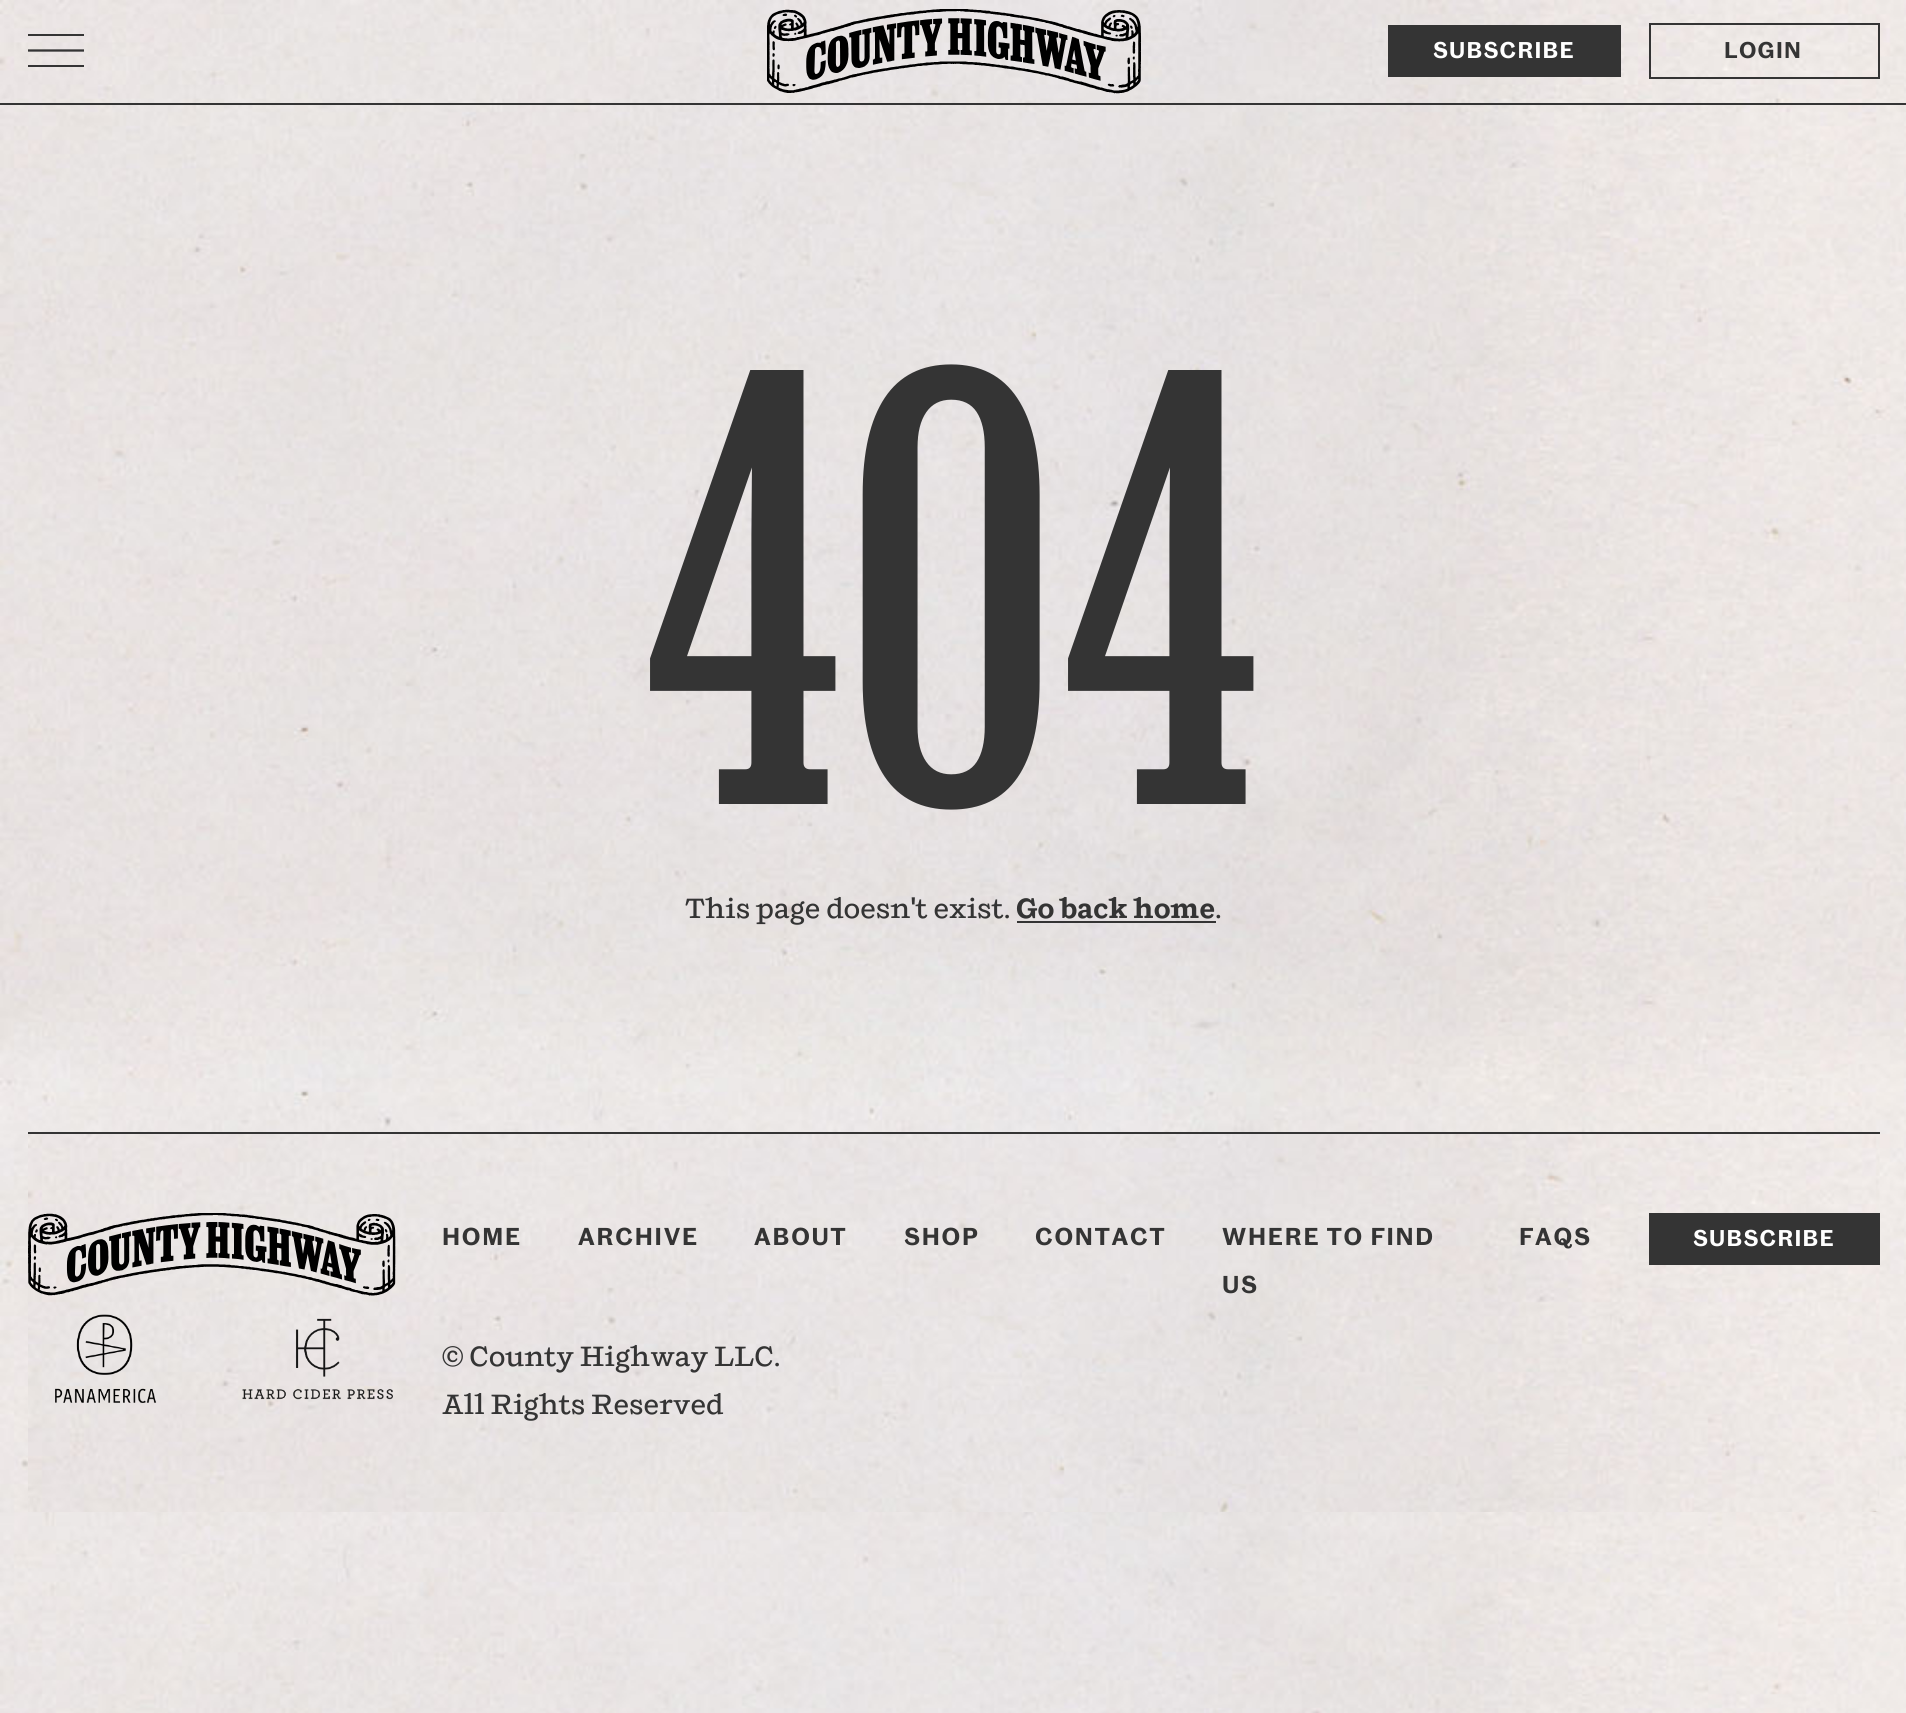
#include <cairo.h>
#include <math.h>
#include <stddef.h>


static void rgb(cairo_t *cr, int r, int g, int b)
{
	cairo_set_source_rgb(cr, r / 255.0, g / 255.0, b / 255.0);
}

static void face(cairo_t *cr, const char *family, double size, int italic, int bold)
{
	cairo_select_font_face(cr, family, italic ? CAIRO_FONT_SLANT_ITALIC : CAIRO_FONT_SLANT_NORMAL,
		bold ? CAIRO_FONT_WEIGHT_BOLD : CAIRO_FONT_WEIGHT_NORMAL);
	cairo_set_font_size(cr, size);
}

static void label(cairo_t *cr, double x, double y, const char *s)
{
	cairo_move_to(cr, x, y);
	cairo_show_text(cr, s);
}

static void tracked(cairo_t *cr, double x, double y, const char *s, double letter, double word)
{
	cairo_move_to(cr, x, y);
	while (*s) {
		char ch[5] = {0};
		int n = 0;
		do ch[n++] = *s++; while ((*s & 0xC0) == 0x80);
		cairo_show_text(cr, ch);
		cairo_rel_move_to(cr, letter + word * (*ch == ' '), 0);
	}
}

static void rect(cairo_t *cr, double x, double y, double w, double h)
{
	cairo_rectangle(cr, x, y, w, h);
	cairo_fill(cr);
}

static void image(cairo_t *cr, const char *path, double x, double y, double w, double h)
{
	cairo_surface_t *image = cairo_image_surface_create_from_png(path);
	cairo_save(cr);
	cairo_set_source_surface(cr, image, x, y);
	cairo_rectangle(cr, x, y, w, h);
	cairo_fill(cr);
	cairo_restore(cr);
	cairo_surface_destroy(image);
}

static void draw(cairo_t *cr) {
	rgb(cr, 255, 255, 255);
	cairo_paint(cr);
	image(cr, "image0.png", 0, 105, 1906, 1608);
	image(cr, "image1.png", 0, 0, 1906, 103);
	rgb(cr, 52, 52, 52);
	rect(cr, 0, 103, 1906, 2);
	rect(cr, 28, 34, 56, 2);
	cairo_new_path(cr);
	cairo_move_to(cr, 28, 50.5);
	cairo_line_to(cr, 84, 50.5);
	cairo_set_line_width(cr, 2.3);
	cairo_stroke(cr);
	rect(cr, 28, 65, 56, 2);
	image(cr, "image2.png", 767, 9, 374, 85);
	rect(cr, 1388, 25, 233, 52);
	face(cr, "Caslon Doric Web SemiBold", 21, 0, 0);
	rgb(cr, 255, 255, 255);
	tracked(cr, 1433, 58, "SUBSCRIBE", 1.25, 0);
	cairo_rectangle(cr, 1650, 24, 229, 54);
	rgb(cr, 52, 52, 52);
	cairo_set_line_width(cr, 2);
	cairo_stroke(cr);
	tracked(cr, 1724, 58, "LOGIN", 1.25, 0);
	face(cr, "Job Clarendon", 560, 0, 0);
	tracked(cr, 645, 804, "404", 5.5, 0);
	face(cr, "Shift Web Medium", 28, 0, 0);
	label(cr, 685, 918, "This page doesn't exist.");
	face(cr, "Shift Web", 28, 0, 1);
	label(cr, 1016, 918, "Go back home");
	rect(cr, 1017, 921, 199, 2);
	face(cr, "Shift Web Medium", 28, 0, 0);
	label(cr, 1215, 918, ".");
	image(cr, "image3.png", 28, 1134, 1852, 378);
	rect(cr, 28, 1132, 1852, 2);
	image(cr, "image4.png", 28, 1213, 368, 83);
	image(cr, "image5.png", 55, 1314, 102, 89);
	image(cr, "image6.png", 242, 1318, 151, 82);
	face(cr, "Caslon Doric Web SemiBold", 22.5, 0, 0);
	tracked(cr, 442, 1245, "HOME", 1.75, 0);
	tracked(cr, 578, 1245, "ARCHIVE", 1.75, 0);
	tracked(cr, 754, 1245, "ABOUT", 1.75, 0);
	tracked(cr, 904, 1245, "SHOP", 1.75, 0);
	tracked(cr, 1035, 1245, "CONTACT", 1.75, 0);
	tracked(cr, 1222, 1245, "WHERE TO FIND", 1.75, 0);
	tracked(cr, 1222, 1293, "US", 1.75, 0);
	tracked(cr, 1519, 1245, "FAQS", 1.75, 0);
	rect(cr, 1649, 1213, 231, 52);
	face(cr, "Caslon Doric Web SemiBold", 21, 0, 0);
	rgb(cr, 255, 255, 255);
	tracked(cr, 1693, 1246, "SUBSCRIBE", 1.25, 0);
	face(cr, "Shift Web Medium", 28, 0, 0);
	rgb(cr, 52, 52, 52);
	label(cr, 442, 1366, "© County Highway LLC.");
	label(cr, 442, 1414, "All Rights Reserved");
}

int main(void) {
	cairo_surface_t *surface = cairo_image_surface_create(CAIRO_FORMAT_RGB24, 1906, 1713);
	cairo_t *cr = cairo_create(surface);
	cairo_font_options_t *options = cairo_font_options_create();
	cairo_font_options_set_hint_metrics(options, CAIRO_HINT_METRICS_OFF);
	cairo_font_options_set_hint_style(options, CAIRO_HINT_STYLE_NONE);
	cairo_set_font_options(cr, options);
	cairo_set_miter_limit(cr, 4);
	draw(cr);
	cairo_surface_write_to_png(surface, "render.png");
	cairo_font_options_destroy(options);
	cairo_destroy(cr);
	cairo_surface_destroy(surface);
	return 0;
}
